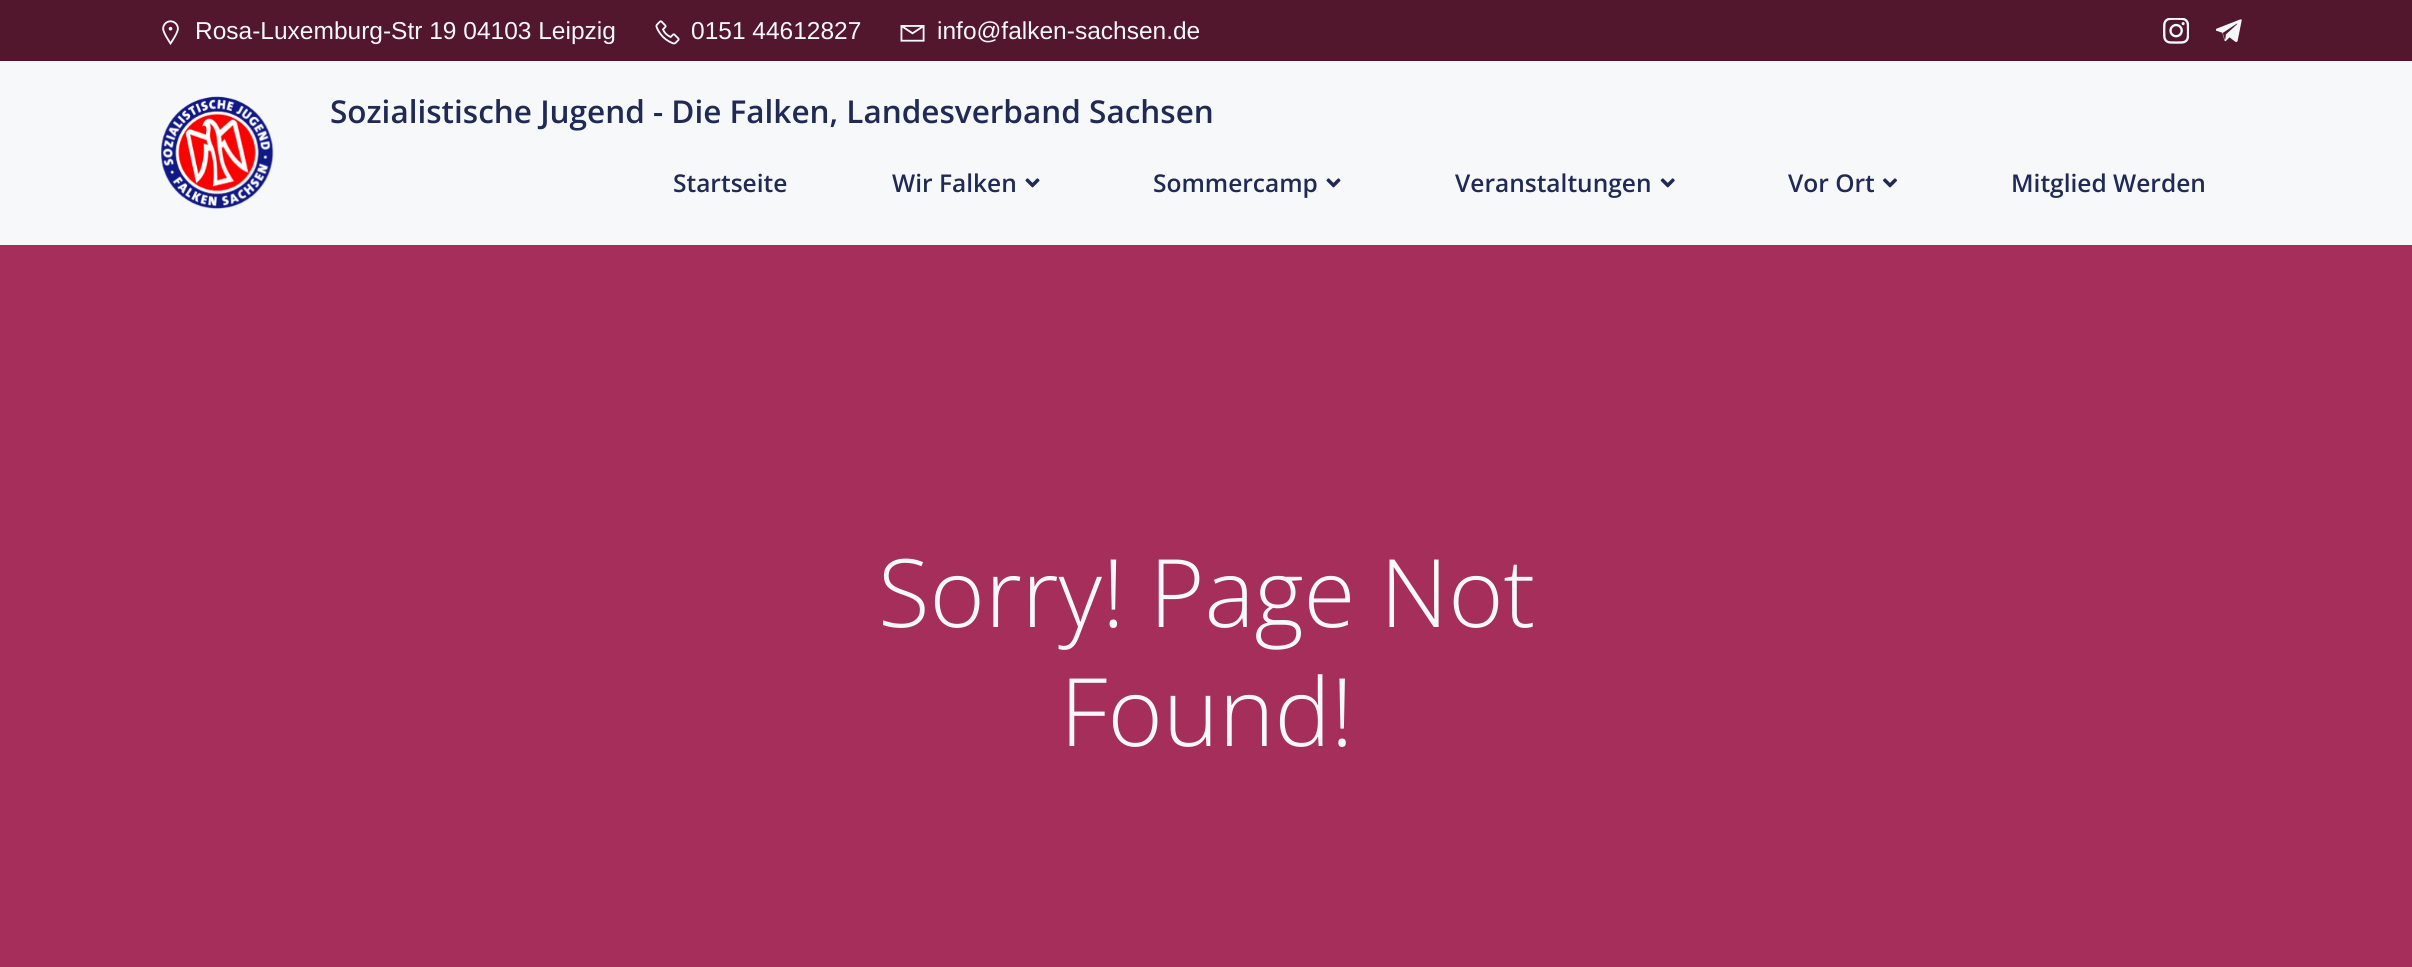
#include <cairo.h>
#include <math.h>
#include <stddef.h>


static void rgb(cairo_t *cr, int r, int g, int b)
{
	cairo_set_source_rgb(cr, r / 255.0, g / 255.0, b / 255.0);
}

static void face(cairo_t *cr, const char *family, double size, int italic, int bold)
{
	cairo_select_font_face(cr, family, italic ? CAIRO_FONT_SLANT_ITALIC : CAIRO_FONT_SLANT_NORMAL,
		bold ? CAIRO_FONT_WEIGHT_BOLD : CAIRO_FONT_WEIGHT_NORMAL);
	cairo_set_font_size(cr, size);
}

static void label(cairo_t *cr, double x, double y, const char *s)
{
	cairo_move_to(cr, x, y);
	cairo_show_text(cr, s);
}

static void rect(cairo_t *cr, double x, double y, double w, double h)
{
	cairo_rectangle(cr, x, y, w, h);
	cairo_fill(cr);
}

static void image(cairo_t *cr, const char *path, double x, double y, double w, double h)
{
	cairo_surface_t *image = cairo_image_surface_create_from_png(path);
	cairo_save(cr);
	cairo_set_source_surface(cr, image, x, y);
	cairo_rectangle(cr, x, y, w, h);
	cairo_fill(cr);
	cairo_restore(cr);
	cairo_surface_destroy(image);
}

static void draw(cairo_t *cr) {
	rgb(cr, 166, 46, 90);
	cairo_paint(cr);
	rgb(cr, 83, 23, 45);
	rect(cr, 0, 0, 2412, 61);
	image(cr, "image0.png", 162, 20, 17, 25);
	face(cr, "Liberation Sans", 24.5, 0, 0);
	rgb(cr, 246, 248, 250);
	label(cr, 195, 39, "Rosa-Luxemburg-Str 19 04103 Leipzig");
	image(cr, "image1.png", 655, 20, 25, 25);
	label(cr, 691, 39, "0151 44612827");
	image(cr, "image2.png", 900, 25, 25, 17);
	label(cr, 937, 39, "info@falken-sachsen.de");
	image(cr, "image3.png", 2163, 18, 26, 26);
	image(cr, "image4.png", 2216, 19, 26, 23);
	rect(cr, 0, 61, 2412, 184);
	image(cr, "image5.png", 161, 96, 113, 114);
	face(cr, "Open Sans SemiBold", 31.5, 0, 0);
	rgb(cr, 32, 42, 84);
	label(cr, 330, 123, "Sozialistische Jugend - Die Falken, Landesverband Sachsen");
	face(cr, "Open Sans SemiBold", 24.5, 0, 0);
	label(cr, 673, 192, "Startseite");
	label(cr, 892, 192, "Wir Falken");
	image(cr, "image6.png", 1025, 178, 15, 10);
	label(cr, 1153, 192, "Sommercamp");
	image(cr, "image6.png", 1326, 178, 15, 10);
	label(cr, 1455, 192, "Veranstaltungen");
	image(cr, "image7.png", 1660, 178, 15, 10);
	label(cr, 1788, 192, "Vor Ort");
	image(cr, "image8.png", 1883, 178, 14, 10);
	label(cr, 2011, 192, "Mitglied Werden");
	face(cr, "Open Sans Light", 94.5, 0, 0);
	rgb(cr, 246, 248, 250);
	label(cr, 878, 627, "Sorry! Page Not");
	label(cr, 1060, 746, "Found!");
}

int main(void) {
	cairo_surface_t *surface = cairo_image_surface_create(CAIRO_FORMAT_RGB24, 2412, 967);
	cairo_t *cr = cairo_create(surface);
	cairo_font_options_t *options = cairo_font_options_create();
	cairo_font_options_set_hint_metrics(options, CAIRO_HINT_METRICS_OFF);
	cairo_font_options_set_hint_style(options, CAIRO_HINT_STYLE_NONE);
	cairo_set_font_options(cr, options);
	cairo_set_miter_limit(cr, 4);
	draw(cr);
	cairo_surface_write_to_png(surface, "render.png");
	cairo_font_options_destroy(options);
	cairo_destroy(cr);
	cairo_surface_destroy(surface);
	return 0;
}
